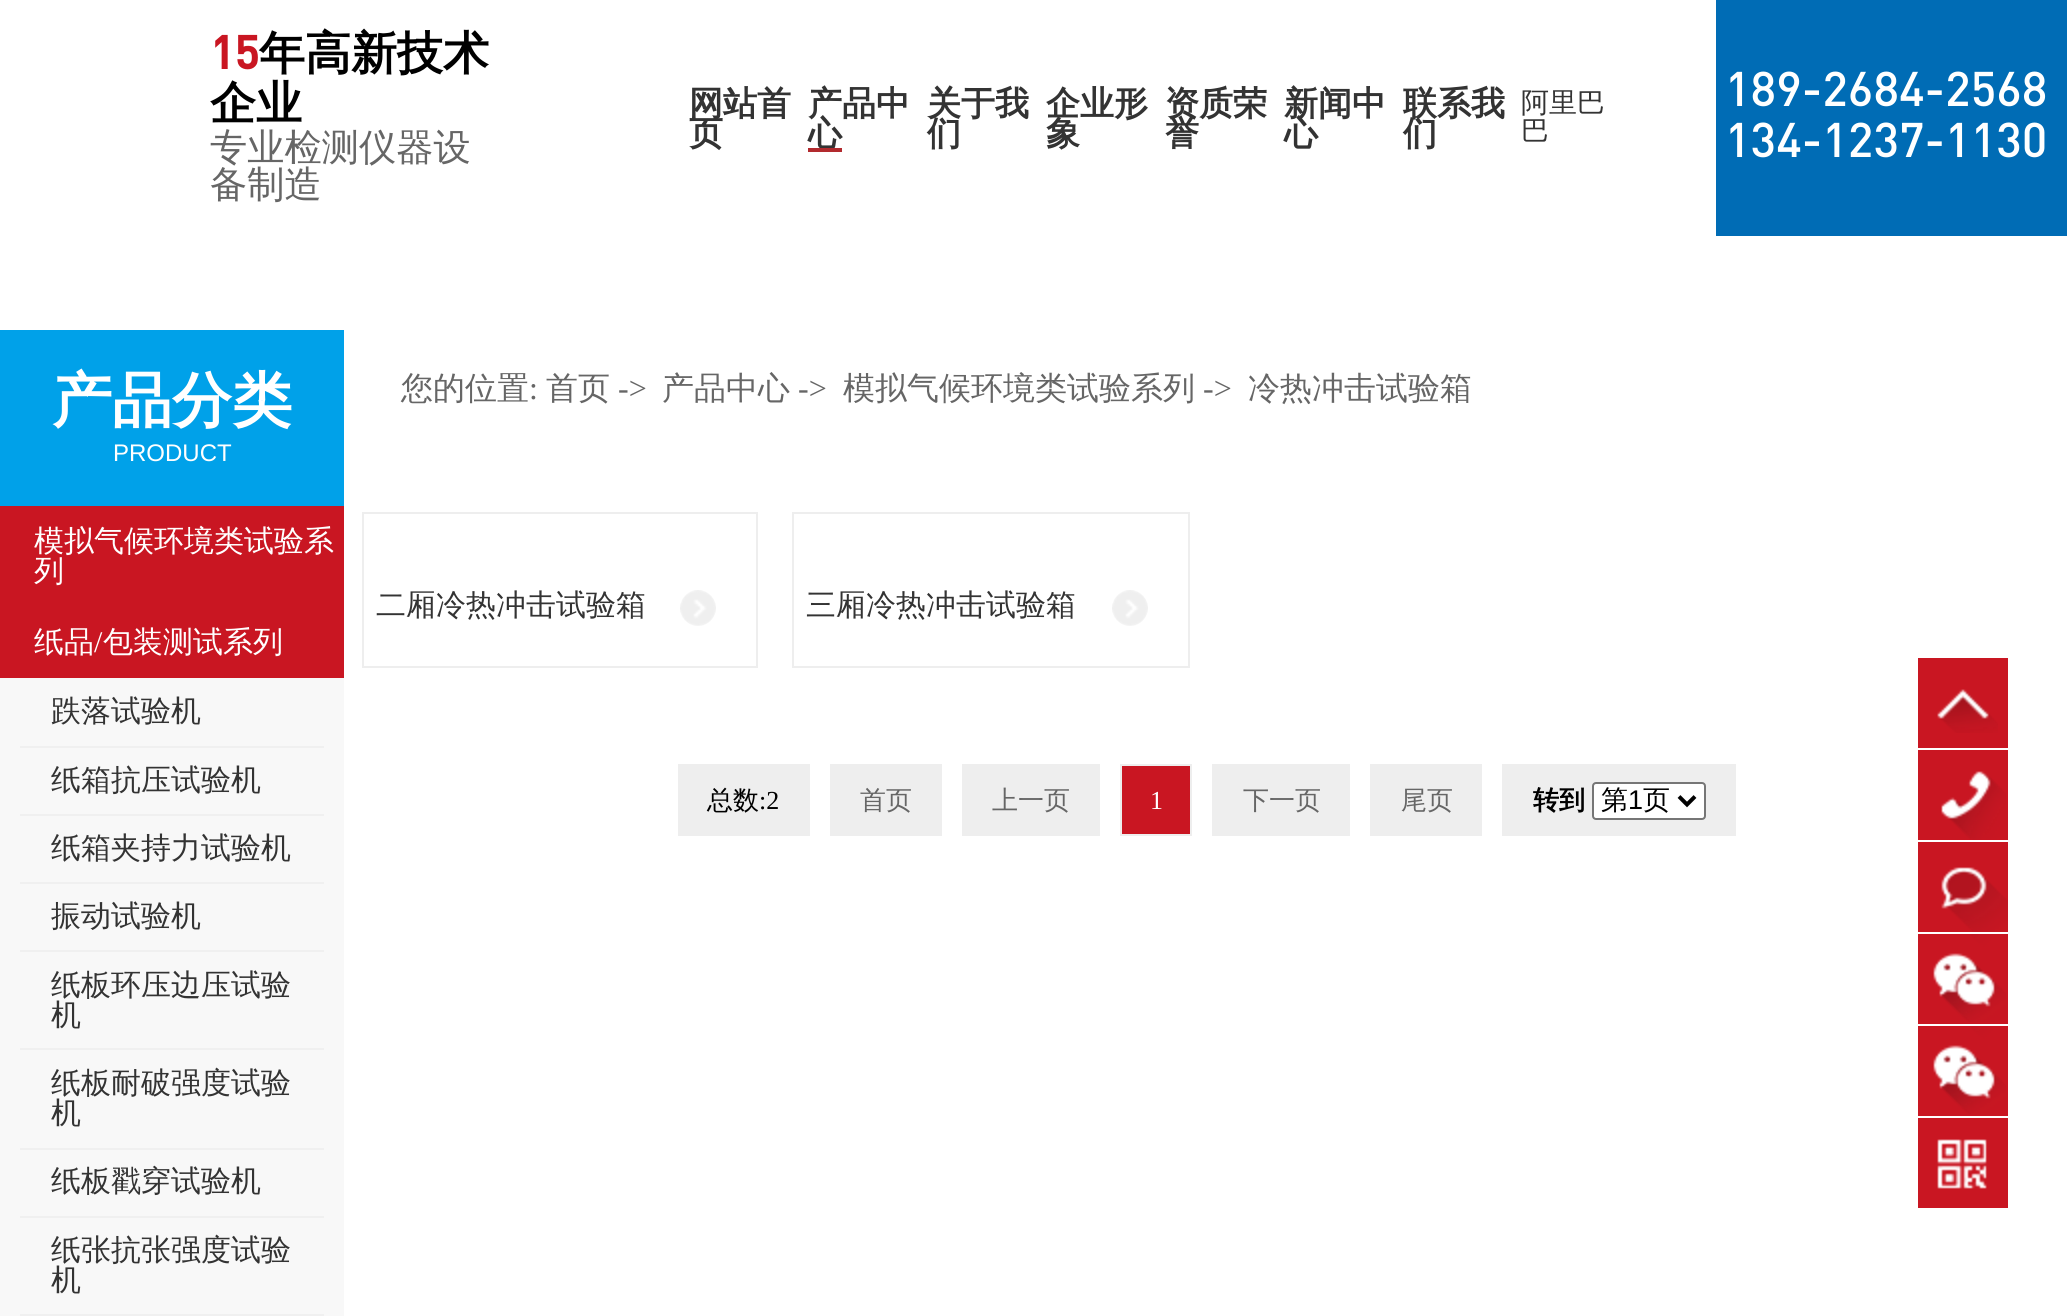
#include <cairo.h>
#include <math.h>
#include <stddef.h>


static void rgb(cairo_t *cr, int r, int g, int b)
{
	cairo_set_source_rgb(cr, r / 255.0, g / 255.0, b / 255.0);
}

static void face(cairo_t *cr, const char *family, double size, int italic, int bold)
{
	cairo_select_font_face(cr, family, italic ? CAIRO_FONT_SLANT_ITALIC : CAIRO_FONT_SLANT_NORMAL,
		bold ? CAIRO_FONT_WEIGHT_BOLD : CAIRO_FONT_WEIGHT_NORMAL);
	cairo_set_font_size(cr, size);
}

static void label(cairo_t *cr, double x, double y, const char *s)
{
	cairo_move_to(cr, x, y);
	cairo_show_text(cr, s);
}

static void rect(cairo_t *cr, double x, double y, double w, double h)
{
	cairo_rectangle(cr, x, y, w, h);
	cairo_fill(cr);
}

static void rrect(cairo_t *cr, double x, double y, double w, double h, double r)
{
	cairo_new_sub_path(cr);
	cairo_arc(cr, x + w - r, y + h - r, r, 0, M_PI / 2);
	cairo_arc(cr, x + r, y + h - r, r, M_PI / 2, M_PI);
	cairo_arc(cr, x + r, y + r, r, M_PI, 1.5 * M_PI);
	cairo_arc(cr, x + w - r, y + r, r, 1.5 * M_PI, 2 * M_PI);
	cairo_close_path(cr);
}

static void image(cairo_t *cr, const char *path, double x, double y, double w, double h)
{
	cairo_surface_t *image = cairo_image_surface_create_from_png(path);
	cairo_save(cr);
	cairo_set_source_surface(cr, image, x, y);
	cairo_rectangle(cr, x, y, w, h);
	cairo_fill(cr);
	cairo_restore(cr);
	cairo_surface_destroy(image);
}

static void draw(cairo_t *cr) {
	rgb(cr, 255, 255, 255);
	cairo_paint(cr);
	rgb(cr, 0, 108, 181);
	rect(cr, 1716, 0, 351, 236);
	face(cr, "DIN", 46, 0, 1);
	rgb(cr, 201, 22, 34);
	label(cr, 210, 69, "15");
	face(cr, "WenQuanYi Zen Hei", 46, 0, 1);
	rgb(cr, 0, 0, 0);
	label(cr, 259, 69, "年高新技术");
	label(cr, 210, 119, "企业");
	face(cr, "WenQuanYi Zen Hei Medium", 37.25, 0, 0);
	rgb(cr, 102, 102, 102);
	label(cr, 210, 160, "专业检测仪器设");
	label(cr, 210, 197, "备制造");
	face(cr, "WenQuanYi Zen Hei", 34, 0, 1);
	rgb(cr, 51, 51, 51);
	label(cr, 689, 115, "网站首");
	label(cr, 689, 145, "页");
	label(cr, 808, 115, "产品中");
	label(cr, 808, 145, "心");
	rgb(cr, 178, 42, 46);
	rect(cr, 808, 148, 34, 4);
	rgb(cr, 51, 51, 51);
	label(cr, 927, 115, "关于我");
	label(cr, 927, 145, "们");
	label(cr, 1046, 115, "企业形");
	label(cr, 1046, 145, "象");
	label(cr, 1165, 115, "资质荣");
	label(cr, 1165, 145, "誉");
	label(cr, 1284, 115, "新闻中");
	label(cr, 1284, 145, "心");
	label(cr, 1403, 115, "联系我");
	label(cr, 1403, 145, "们");
	face(cr, "WenQuanYi Zen Hei Medium", 28, 0, 0);
	label(cr, 1521, 112, "阿里巴");
	label(cr, 1521, 140, "巴");
	face(cr, "DIN Medium", 48, 0, 0);
	rgb(cr, 255, 255, 255);
	label(cr, 1725, 106, "189-2684-2568");
	label(cr, 1725, 157, "134-1237-1130");
	rgb(cr, 0, 161, 233);
	rect(cr, 0, 330, 344, 176);
	face(cr, "WenQuanYi Zen Hei", 60, 0, 1);
	rgb(cr, 255, 255, 255);
	label(cr, 52, 421, "产品分类");
	face(cr, "Liberation Sans", 24, 0, 0);
	label(cr, 113, 461, "PRODUCT");
	rgb(cr, 201, 22, 34);
	rect(cr, 0, 506, 344, 172);
	face(cr, "WenQuanYi Zen Hei Medium", 30, 0, 0);
	rgb(cr, 255, 255, 255);
	label(cr, 34, 551, "模拟气候环境类试验系");
	label(cr, 34, 581, "列");
	label(cr, 34, 652, "纸品");
	face(cr, "Liberation Serif", 30, 0, 0);
	label(cr, 94, 652, "/");
	face(cr, "WenQuanYi Zen Hei Medium", 30, 0, 0);
	label(cr, 103, 652, "包装测试系列");
	rgb(cr, 248, 248, 248);
	rect(cr, 0, 678, 344, 638);
	rgb(cr, 240, 240, 240);
	rect(cr, 20, 746, 304, 2);
	rgb(cr, 51, 51, 51);
	label(cr, 51, 721, "跌落试验机");
	rgb(cr, 240, 240, 240);
	rect(cr, 20, 814, 304, 2);
	rgb(cr, 51, 51, 51);
	label(cr, 51, 790, "纸箱抗压试验机");
	rgb(cr, 240, 240, 240);
	rect(cr, 20, 882, 304, 2);
	rgb(cr, 51, 51, 51);
	label(cr, 51, 858, "纸箱夹持力试验机");
	rgb(cr, 240, 240, 240);
	rect(cr, 20, 950, 304, 2);
	rgb(cr, 51, 51, 51);
	label(cr, 51, 926, "振动试验机");
	rgb(cr, 240, 240, 240);
	rect(cr, 20, 1048, 304, 2);
	rgb(cr, 51, 51, 51);
	label(cr, 51, 995, "纸板环压边压试验");
	label(cr, 51, 1025, "机");
	rgb(cr, 240, 240, 240);
	rect(cr, 20, 1148, 304, 2);
	rgb(cr, 51, 51, 51);
	label(cr, 51, 1093, "纸板耐破强度试验");
	label(cr, 51, 1123, "机");
	rgb(cr, 240, 240, 240);
	rect(cr, 20, 1216, 304, 2);
	rgb(cr, 51, 51, 51);
	label(cr, 51, 1191, "纸板戳穿试验机");
	rgb(cr, 240, 240, 240);
	rect(cr, 20, 1314, 304, 2);
	rgb(cr, 51, 51, 51);
	label(cr, 51, 1260, "纸张抗张强度试验");
	label(cr, 51, 1290, "机");
	face(cr, "WenQuanYi Zen Hei Medium", 32, 0, 0);
	rgb(cr, 102, 102, 102);
	label(cr, 401, 399, "您的位置");
	face(cr, "Liberation Serif", 32, 0, 0);
	label(cr, 529, 399, ":");
	face(cr, "WenQuanYi Zen Hei Medium", 32, 0, 0);
	label(cr, 546, 399, "首页");
	face(cr, "Liberation Serif", 32, 0, 0);
	label(cr, 618, 399, "->");
	face(cr, "WenQuanYi Zen Hei Medium", 32, 0, 0);
	label(cr, 662, 399, "产品中心");
	face(cr, "Liberation Serif", 32, 0, 0);
	label(cr, 798, 399, "->");
	face(cr, "WenQuanYi Zen Hei Medium", 32, 0, 0);
	label(cr, 843, 399, "模拟气候环境类试验系列");
	face(cr, "Liberation Serif", 32, 0, 0);
	label(cr, 1203, 399, "->");
	face(cr, "WenQuanYi Zen Hei Medium", 32, 0, 0);
	label(cr, 1248, 399, "冷热冲击试验箱");
	cairo_rectangle(cr, 363, 513, 394, 154);
	rgb(cr, 238, 238, 238);
	cairo_stroke(cr);
	face(cr, "WenQuanYi Zen Hei Medium", 30, 0, 0);
	rgb(cr, 51, 51, 51);
	label(cr, 376, 615, "二厢冷热冲击试验箱");
	image(cr, "image0.png", 680, 590, 36, 36);
	cairo_rectangle(cr, 793, 513, 396, 154);
	rgb(cr, 238, 238, 238);
	cairo_stroke(cr);
	rgb(cr, 51, 51, 51);
	label(cr, 806, 615, "三厢冷热冲击试验箱");
	image(cr, "image0.png", 1112, 590, 36, 36);
	rgb(cr, 238, 238, 238);
	rect(cr, 678, 764, 132, 72);
	face(cr, "WenQuanYi Zen Hei Medium", 26, 0, 0);
	rgb(cr, 0, 0, 0);
	label(cr, 707, 809, "总数");
	face(cr, "Liberation Serif", 26, 0, 0);
	label(cr, 759, 809, ":2");
	rgb(cr, 238, 238, 238);
	rect(cr, 830, 764, 112, 72);
	face(cr, "WenQuanYi Zen Hei Medium", 26, 0, 0);
	rgb(cr, 102, 102, 102);
	label(cr, 860, 809, "首页");
	rgb(cr, 238, 238, 238);
	rect(cr, 962, 764, 138, 72);
	rgb(cr, 102, 102, 102);
	label(cr, 992, 809, "上一页");
	rgb(cr, 201, 22, 34);
	cairo_rectangle(cr, 1121, 765, 70, 70);
	cairo_fill_preserve(cr);
	rgb(cr, 238, 238, 238);
	cairo_stroke(cr);
	face(cr, "Liberation Serif", 26, 0, 0);
	rgb(cr, 255, 255, 255);
	label(cr, 1150, 809, "1");
	rgb(cr, 238, 238, 238);
	rect(cr, 1212, 764, 138, 72);
	face(cr, "WenQuanYi Zen Hei Medium", 26, 0, 0);
	rgb(cr, 102, 102, 102);
	label(cr, 1243, 809, "下一页");
	rgb(cr, 238, 238, 238);
	rect(cr, 1370, 764, 112, 72);
	rgb(cr, 102, 102, 102);
	label(cr, 1401, 809, "尾页");
	rgb(cr, 238, 238, 238);
	rect(cr, 1502, 764, 234, 72);
	face(cr, "WenQuanYi Zen Hei", 26, 0, 1);
	rgb(cr, 0, 0, 0);
	label(cr, 1533, 809, "转到");
	rgb(cr, 255, 255, 255);
	rrect(cr, 1593, 783, 112, 36, 3);
	cairo_fill_preserve(cr);
	rgb(cr, 118, 118, 118);
	cairo_stroke(cr);
	cairo_new_path(cr);
	cairo_move_to(cr, 1679, 796.5);
	cairo_line_to(cr, 1687, 804.5);
	cairo_line_to(cr, 1695, 796.5);
	rgb(cr, 0, 0, 0);
	cairo_set_line_width(cr, 4);
	cairo_stroke(cr);
	face(cr, "WenQuanYi Zen Hei Medium", 27, 0, 0);
	label(cr, 1601, 809, "第");
	face(cr, "Liberation Sans", 27, 0, 0);
	label(cr, 1628, 809, "1");
	face(cr, "WenQuanYi Zen Hei Medium", 27, 0, 0);
	label(cr, 1643, 809, "页");
	rgb(cr, 201, 22, 34);
	rect(cr, 1918, 658, 90, 90);
	image(cr, "image1.png", 1937, 689, 61, 44);
	rect(cr, 1918, 750, 90, 90);
	image(cr, "image2.png", 1941, 771, 65, 69);
	rect(cr, 1918, 842, 90, 90);
	image(cr, "image3.png", 1941, 867, 67, 65);
	rect(cr, 1918, 934, 90, 90);
	image(cr, "image4.png", 1933, 934, 73, 88);
	rect(cr, 1918, 1026, 90, 90);
	image(cr, "image4.png", 1933, 1026, 73, 88);
	rect(cr, 1918, 1118, 90, 90);
	image(cr, "image5.png", 1937, 1139, 50, 50);
}

int main(void) {
	cairo_surface_t *surface = cairo_image_surface_create(CAIRO_FORMAT_RGB24, 2067, 1316);
	cairo_t *cr = cairo_create(surface);
	cairo_font_options_t *options = cairo_font_options_create();
	cairo_font_options_set_hint_metrics(options, CAIRO_HINT_METRICS_OFF);
	cairo_font_options_set_hint_style(options, CAIRO_HINT_STYLE_NONE);
	cairo_set_font_options(cr, options);
	cairo_set_miter_limit(cr, 4);
	draw(cr);
	cairo_surface_write_to_png(surface, "render.png");
	cairo_font_options_destroy(options);
	cairo_destroy(cr);
	cairo_surface_destroy(surface);
	return 0;
}
